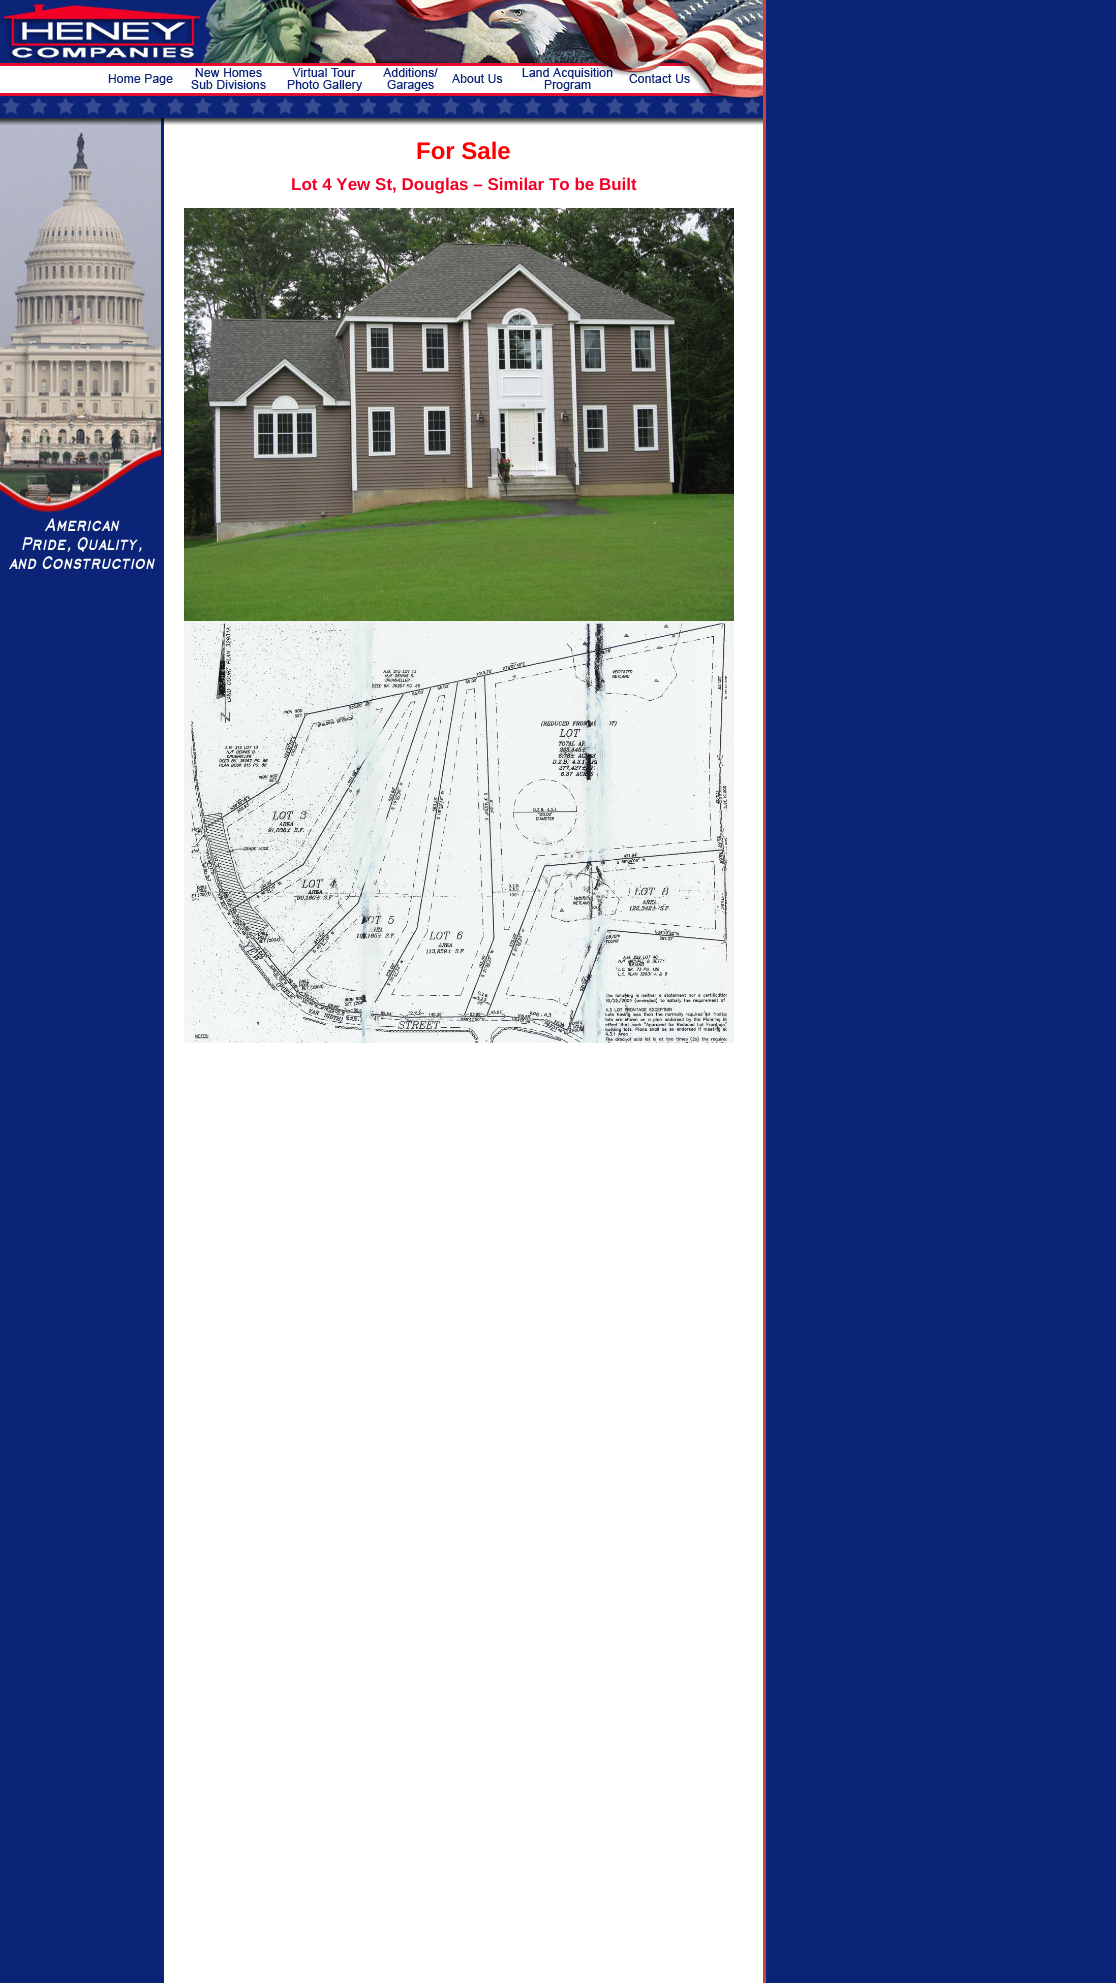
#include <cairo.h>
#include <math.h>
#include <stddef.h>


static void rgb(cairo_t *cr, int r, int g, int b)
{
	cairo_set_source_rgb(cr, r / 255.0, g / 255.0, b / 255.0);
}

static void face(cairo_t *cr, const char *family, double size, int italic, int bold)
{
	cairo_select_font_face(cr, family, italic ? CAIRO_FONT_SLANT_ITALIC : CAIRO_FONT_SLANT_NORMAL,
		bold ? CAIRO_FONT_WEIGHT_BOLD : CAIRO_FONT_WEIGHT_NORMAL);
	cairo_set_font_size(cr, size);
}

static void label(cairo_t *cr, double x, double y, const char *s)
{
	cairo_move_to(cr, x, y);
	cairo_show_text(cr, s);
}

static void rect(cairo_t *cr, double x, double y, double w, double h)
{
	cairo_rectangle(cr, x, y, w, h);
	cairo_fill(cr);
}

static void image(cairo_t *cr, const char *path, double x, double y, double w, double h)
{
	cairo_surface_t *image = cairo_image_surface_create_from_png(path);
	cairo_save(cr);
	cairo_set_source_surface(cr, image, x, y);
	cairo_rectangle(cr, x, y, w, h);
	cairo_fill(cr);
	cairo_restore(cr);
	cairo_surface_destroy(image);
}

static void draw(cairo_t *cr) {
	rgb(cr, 255, 255, 255);
	cairo_paint(cr);
	image(cr, "image0.png", 0, 0, 1116, 1983);
	image(cr, "image1.png", 0, 0, 203, 66);
	image(cr, "image2.png", 203, 0, 84, 66);
	image(cr, "image3.png", 287, 0, 96, 66);
	image(cr, "image4.png", 383, 0, 69, 66);
	image(cr, "image5.png", 452, 0, 70, 66);
	image(cr, "image6.png", 522, 0, 107, 66);
	image(cr, "image7.png", 629, 0, 65, 66);
	image(cr, "image8.png", 694, 0, 69, 66);
	rgb(cr, 255, 255, 255);
	rect(cr, 0, 66, 108, 27);
	image(cr, "image9.png", 108, 66, 72, 27);
	image(cr, "image10.png", 191, 66, 80, 24);
	image(cr, "image11.png", 287, 66, 80, 27);
	image(cr, "image12.png", 383, 66, 56, 27);
	image(cr, "image13.png", 452, 74, 56, 16);
	image(cr, "image14.png", 522, 66, 107, 27);
	image(cr, "image15.png", 629, 66, 65, 24);
	image(cr, "image16.png", 694, 66, 69, 27);
	image(cr, "image17.png", 0, 93, 108, 24);
	image(cr, "image18.png", 108, 93, 56, 24);
	image(cr, "image19.png", 164, 93, 27, 25);
	image(cr, "image20.png", 191, 93, 96, 25);
	image(cr, "image21.png", 287, 93, 96, 25);
	image(cr, "image22.png", 383, 93, 69, 25);
	image(cr, "image23.png", 452, 93, 70, 25);
	image(cr, "image24.png", 522, 93, 107, 25);
	image(cr, "image25.png", 629, 93, 65, 25);
	image(cr, "image26.png", 694, 93, 69, 25);
	image(cr, "image27.png", 0, 118, 164, 456);
	image(cr, "image28.png", 164, 118, 599, 7);
	face(cr, "Liberation Sans", 24, 0, 1);
	rgb(cr, 255, 0, 0);
	label(cr, 416, 159, "For Sale");
	face(cr, "Liberation Sans", 17, 0, 1);
	rgb(cr, 242, 0, 38);
	label(cr, 291, 190, "Lot 4 Yew St, Douglas – Similar To be Built");
	image(cr, "image29.png", 184, 208, 550, 413);
	image(cr, "image30.png", 184, 621, 550, 422);
}

int main(void) {
	cairo_surface_t *surface = cairo_image_surface_create(CAIRO_FORMAT_RGB24, 1116, 1983);
	cairo_t *cr = cairo_create(surface);
	cairo_font_options_t *options = cairo_font_options_create();
	cairo_font_options_set_hint_metrics(options, CAIRO_HINT_METRICS_OFF);
	cairo_font_options_set_hint_style(options, CAIRO_HINT_STYLE_NONE);
	cairo_set_font_options(cr, options);
	cairo_set_miter_limit(cr, 4);
	draw(cr);
	cairo_surface_write_to_png(surface, "render.png");
	cairo_font_options_destroy(options);
	cairo_destroy(cr);
	cairo_surface_destroy(surface);
	return 0;
}
